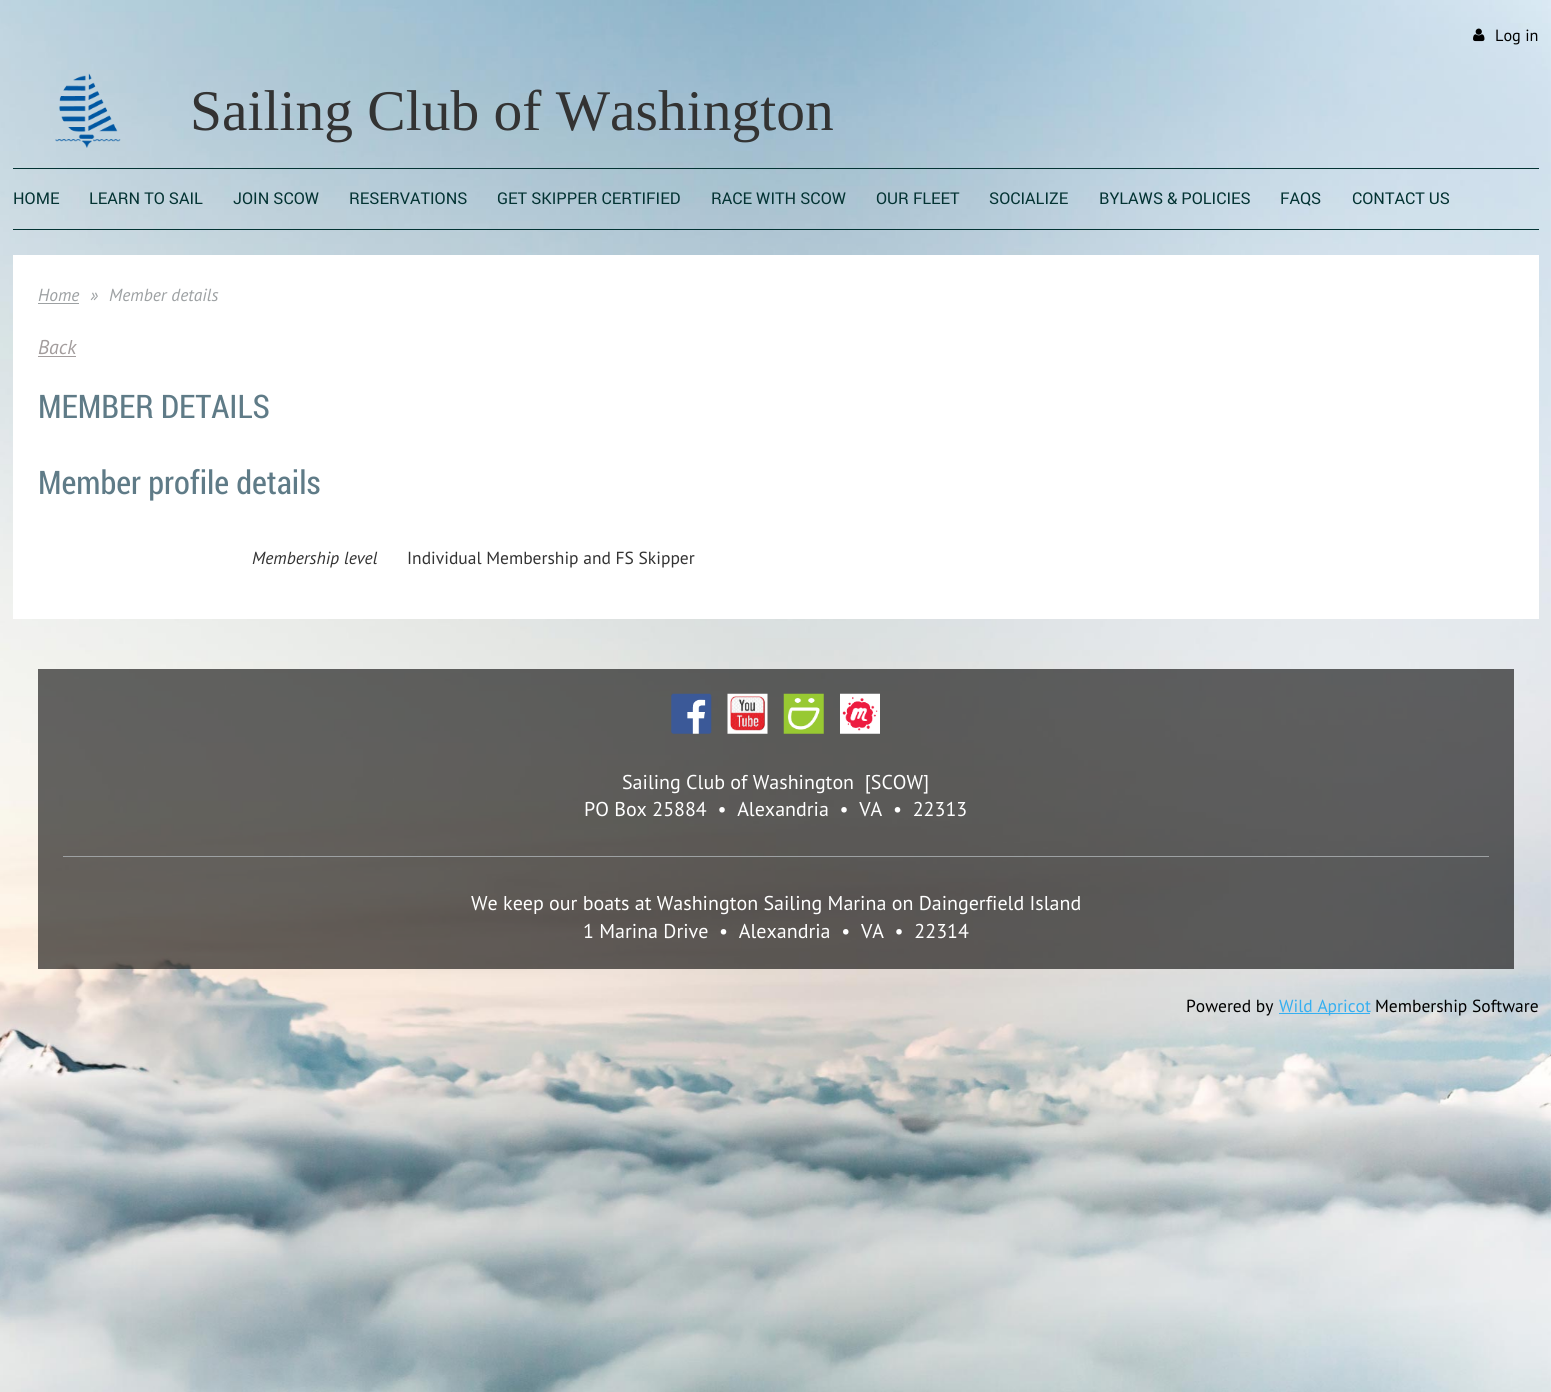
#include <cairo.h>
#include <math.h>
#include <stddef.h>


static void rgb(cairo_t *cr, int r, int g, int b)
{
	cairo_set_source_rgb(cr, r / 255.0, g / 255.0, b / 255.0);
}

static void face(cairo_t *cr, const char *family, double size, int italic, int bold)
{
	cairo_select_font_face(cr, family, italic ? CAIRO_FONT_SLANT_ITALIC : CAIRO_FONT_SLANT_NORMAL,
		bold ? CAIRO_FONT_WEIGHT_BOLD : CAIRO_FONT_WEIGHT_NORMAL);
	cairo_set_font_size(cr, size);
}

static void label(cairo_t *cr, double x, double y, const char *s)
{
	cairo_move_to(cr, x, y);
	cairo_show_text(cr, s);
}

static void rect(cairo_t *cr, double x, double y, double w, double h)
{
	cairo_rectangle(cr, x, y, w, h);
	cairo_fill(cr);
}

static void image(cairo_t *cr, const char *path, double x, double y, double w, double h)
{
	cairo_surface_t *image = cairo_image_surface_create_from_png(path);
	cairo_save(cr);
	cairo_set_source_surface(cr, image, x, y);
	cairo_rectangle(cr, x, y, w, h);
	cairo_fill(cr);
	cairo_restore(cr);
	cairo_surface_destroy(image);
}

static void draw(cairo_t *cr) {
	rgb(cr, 255, 255, 255);
	cairo_paint(cr);
	image(cr, "image0.png", 0, 0, 1551, 1392);
	image(cr, "image1.png", 1473, 28, 12, 14);
	face(cr, "PT Sans", 16.25, 0, 0);
	rgb(cr, 0, 0, 0);
	label(cr, 1495, 41, "Log in");
	image(cr, "image2.png", 55, 73, 66, 75);
	face(cr, "Liberation Serif", 57.5, 0, 0);
	rgb(cr, 51, 51, 51);
	label(cr, 190, 130, "Sailing Club of Washington");
	rgb(cr, 3, 51, 51);
	rect(cr, 13, 168, 1526, 1);
	rect(cr, 13, 229, 1526, 1);
	face(cr, "Roboto", 16.25, 0, 0);
	label(cr, 13, 204, "HOME");
	label(cr, 89, 204, "LEARN TO SAIL");
	label(cr, 233, 204, "JOIN SCOW");
	label(cr, 349, 204, "RESERVATIONS");
	label(cr, 497, 204, "GET SKIPPER CERTIFIED");
	label(cr, 711, 204, "RACE WITH SCOW");
	label(cr, 876, 204, "OUR FLEET");
	label(cr, 989, 204, "SOCIALIZE");
	label(cr, 1099, 204, "BYLAWS & POLICIES");
	label(cr, 1280, 204, "FAQS");
	label(cr, 1352, 204, "CONTACT US");
	rgb(cr, 255, 255, 255);
	rect(cr, 13, 255, 1526, 364);
	face(cr, "PT Sans", 17.5, 1, 0);
	rgb(cr, 157, 161, 163);
	label(cr, 38, 301, "Home");
	rect(cr, 38, 303, 41, 1);
	label(cr, 90, 301, "»");
	label(cr, 109, 301, "Member details");
	face(cr, "PT Sans", 20, 1, 0);
	rgb(cr, 163, 157, 157);
	label(cr, 38, 354, "Back");
	rect(cr, 38, 356, 38, 1);
	face(cr, "Roboto Condensed", 32.5, 0, 0);
	rgb(cr, 95, 123, 135);
	label(cr, 38, 418, "MEMBER DETAILS");
	label(cr, 38, 494, "Member profile details");
	face(cr, "PT Sans", 17.5, 1, 0);
	rgb(cr, 51, 51, 51);
	label(cr, 252, 564, "Membership level");
	face(cr, "PT Sans", 17.5, 0, 0);
	label(cr, 407, 564, "Individual Membership and FS Skipper");
	cairo_set_source_rgba(cr, 0, 0, 0, 0.6);
	rect(cr, 38, 669, 1476, 300);
	image(cr, "image3.png", 671, 693, 41, 41);
	image(cr, "image4.png", 727, 693, 41, 41);
	image(cr, "image5.png", 783, 693, 41, 41);
	image(cr, "image6.png", 840, 693, 40, 41);
	face(cr, "PT Sans", 20, 0, 0);
	rgb(cr, 255, 255, 255);
	label(cr, 622, 789, "Sailing Club of Washington  [SCOW]");
	label(cr, 584, 816, "PO Box 25884  •  Alexandria  •  VA  •  22313");
	rgb(cr, 157, 161, 163);
	rect(cr, 63, 856, 1426, 1);
	rgb(cr, 255, 255, 255);
	label(cr, 471, 910, "We keep our boats at Washington Sailing Marina on Daingerfield Island");
	label(cr, 583, 938, "1 Marina Drive  •  Alexandria  •  VA  •  22314");
	face(cr, "PT Sans", 17.5, 0, 0);
	rgb(cr, 0, 0, 0);
	label(cr, 1186, 1012, "Powered by");
	rgb(cr, 54, 175, 240);
	rect(cr, 1279, 1013, 91, 1);
	label(cr, 1279, 1012, "Wild Apricot");
	rgb(cr, 0, 0, 0);
	label(cr, 1375, 1012, "Membership Software");
}

int main(void) {
	cairo_surface_t *surface = cairo_image_surface_create(CAIRO_FORMAT_RGB24, 1551, 1392);
	cairo_t *cr = cairo_create(surface);
	cairo_font_options_t *options = cairo_font_options_create();
	cairo_font_options_set_hint_metrics(options, CAIRO_HINT_METRICS_OFF);
	cairo_font_options_set_hint_style(options, CAIRO_HINT_STYLE_NONE);
	cairo_set_font_options(cr, options);
	cairo_set_miter_limit(cr, 4);
	draw(cr);
	cairo_surface_write_to_png(surface, "render.png");
	cairo_font_options_destroy(options);
	cairo_destroy(cr);
	cairo_surface_destroy(surface);
	return 0;
}
